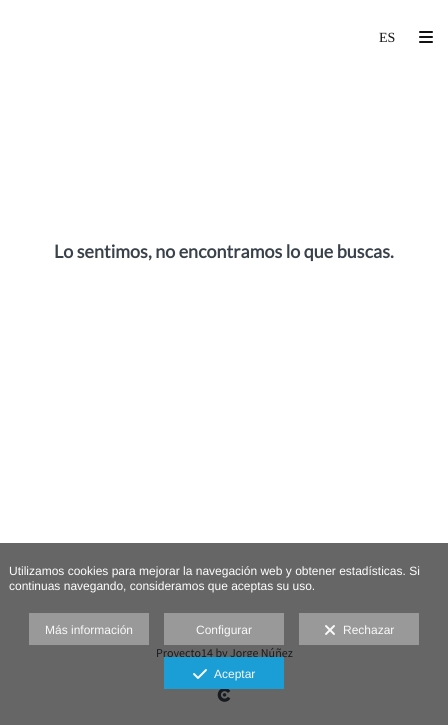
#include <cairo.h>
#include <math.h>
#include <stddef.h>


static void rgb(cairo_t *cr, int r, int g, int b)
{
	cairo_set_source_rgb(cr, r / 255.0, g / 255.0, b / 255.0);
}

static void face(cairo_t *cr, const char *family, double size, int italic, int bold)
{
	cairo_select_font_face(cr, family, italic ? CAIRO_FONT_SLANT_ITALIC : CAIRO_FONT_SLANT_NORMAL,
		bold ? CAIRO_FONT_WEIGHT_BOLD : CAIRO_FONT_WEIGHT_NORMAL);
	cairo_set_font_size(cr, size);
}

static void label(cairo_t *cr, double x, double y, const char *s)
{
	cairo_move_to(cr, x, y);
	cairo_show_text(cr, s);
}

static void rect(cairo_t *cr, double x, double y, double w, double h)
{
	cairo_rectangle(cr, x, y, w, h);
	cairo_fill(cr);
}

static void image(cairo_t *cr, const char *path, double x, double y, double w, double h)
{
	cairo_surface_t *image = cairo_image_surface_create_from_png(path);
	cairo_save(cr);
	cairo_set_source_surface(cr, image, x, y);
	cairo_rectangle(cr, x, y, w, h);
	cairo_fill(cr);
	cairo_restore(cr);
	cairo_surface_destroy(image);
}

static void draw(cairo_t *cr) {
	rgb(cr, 255, 255, 255);
	cairo_paint(cr);
	rgb(cr, 102, 102, 102);
	rect(cr, 0, 543, 448, 182);
	face(cr, "Liberation Serif", 14, 0, 0);
	rgb(cr, 16, 18, 20);
	label(cr, 379, 42, "ES");
	image(cr, "image0.png", 419, 31, 14, 12);
	face(cr, "Lato", 18, 0, 1);
	rgb(cr, 57, 65, 74);
	label(cr, 54, 258, "Lo sentimos, no encontramos lo que buscas.");
	face(cr, "Source Sans Pro", 12, 0, 0);
	rgb(cr, 23, 26, 30);
	label(cr, 156, 657, "Proyecto14 by Jorge Núñez");
	image(cr, "image1.png", 217, 689, 14, 13);
	face(cr, "Liberation Sans", 12, 0, 0);
	rgb(cr, 255, 255, 255);
	label(cr, 9, 575, "Utilizamos cookies para mejorar la navegación web y obtener estadísticas. Si");
	label(cr, 9, 590, "continuas navegando, consideramos que aceptas su uso.");
	rgb(cr, 153, 153, 153);
	rect(cr, 29, 613, 120, 32);
	rgb(cr, 249, 249, 249);
	label(cr, 45, 634, "Más información");
	rgb(cr, 153, 153, 153);
	rect(cr, 164, 613, 120, 32);
	rgb(cr, 249, 249, 249);
	label(cr, 196, 634, "Configurar");
	rgb(cr, 153, 153, 153);
	rect(cr, 299, 613, 120, 32);
	image(cr, "image2.png", 325, 625, 10, 10);
	rgb(cr, 249, 249, 249);
	label(cr, 343, 634, "Rechazar");
	rgb(cr, 26, 158, 213);
	rect(cr, 164, 657, 120, 32);
	image(cr, "image3.png", 193, 669, 14, 10);
	rgb(cr, 249, 249, 249);
	label(cr, 214, 678, "Aceptar");
}

int main(void) {
	cairo_surface_t *surface = cairo_image_surface_create(CAIRO_FORMAT_RGB24, 448, 725);
	cairo_t *cr = cairo_create(surface);
	cairo_font_options_t *options = cairo_font_options_create();
	cairo_font_options_set_hint_metrics(options, CAIRO_HINT_METRICS_OFF);
	cairo_font_options_set_hint_style(options, CAIRO_HINT_STYLE_NONE);
	cairo_set_font_options(cr, options);
	cairo_set_miter_limit(cr, 4);
	draw(cr);
	cairo_surface_write_to_png(surface, "render.png");
	cairo_font_options_destroy(options);
	cairo_destroy(cr);
	cairo_surface_destroy(surface);
	return 0;
}
